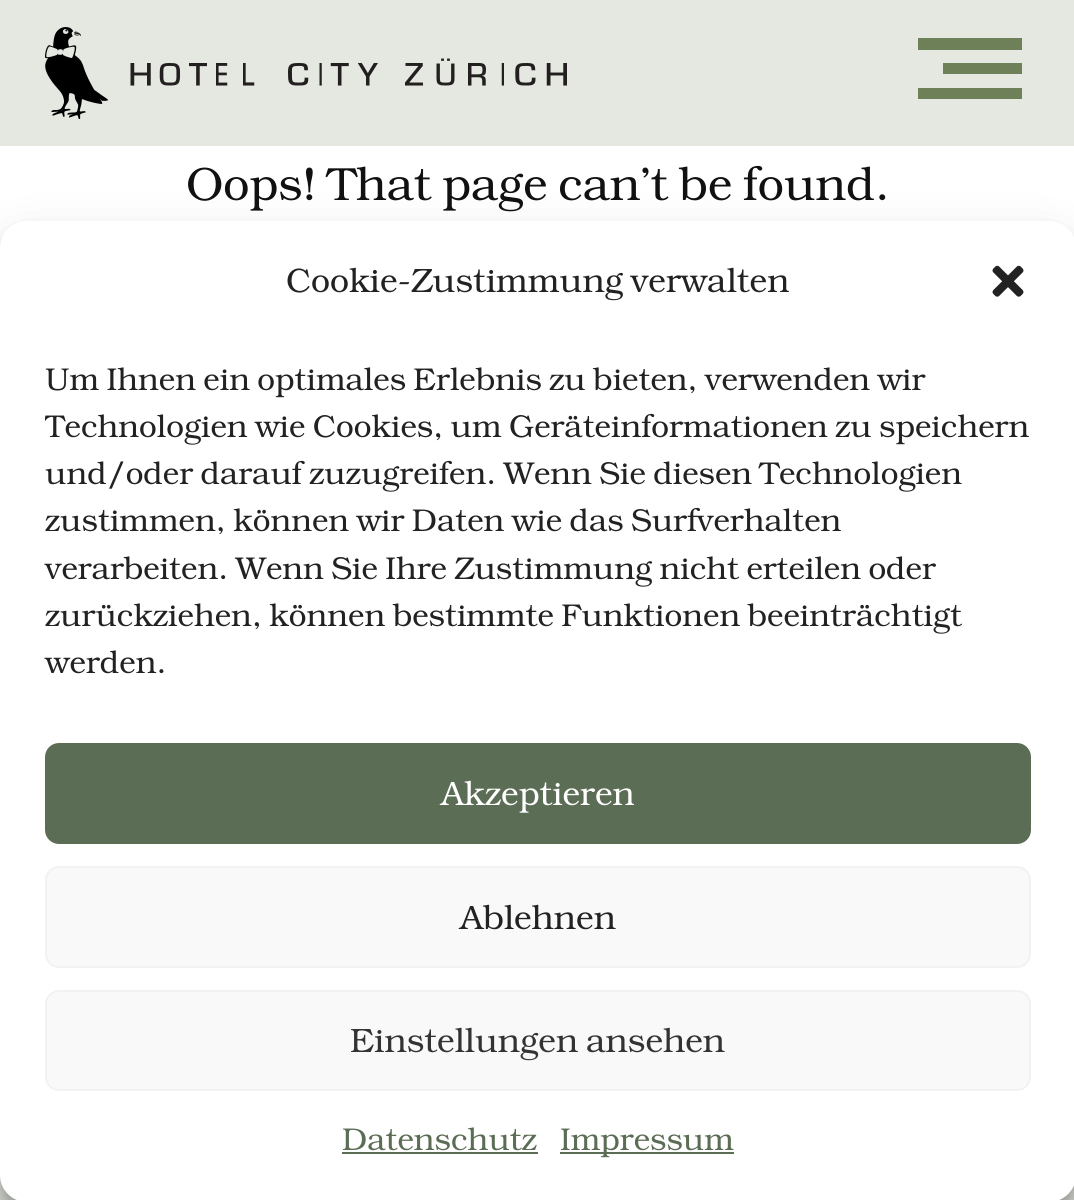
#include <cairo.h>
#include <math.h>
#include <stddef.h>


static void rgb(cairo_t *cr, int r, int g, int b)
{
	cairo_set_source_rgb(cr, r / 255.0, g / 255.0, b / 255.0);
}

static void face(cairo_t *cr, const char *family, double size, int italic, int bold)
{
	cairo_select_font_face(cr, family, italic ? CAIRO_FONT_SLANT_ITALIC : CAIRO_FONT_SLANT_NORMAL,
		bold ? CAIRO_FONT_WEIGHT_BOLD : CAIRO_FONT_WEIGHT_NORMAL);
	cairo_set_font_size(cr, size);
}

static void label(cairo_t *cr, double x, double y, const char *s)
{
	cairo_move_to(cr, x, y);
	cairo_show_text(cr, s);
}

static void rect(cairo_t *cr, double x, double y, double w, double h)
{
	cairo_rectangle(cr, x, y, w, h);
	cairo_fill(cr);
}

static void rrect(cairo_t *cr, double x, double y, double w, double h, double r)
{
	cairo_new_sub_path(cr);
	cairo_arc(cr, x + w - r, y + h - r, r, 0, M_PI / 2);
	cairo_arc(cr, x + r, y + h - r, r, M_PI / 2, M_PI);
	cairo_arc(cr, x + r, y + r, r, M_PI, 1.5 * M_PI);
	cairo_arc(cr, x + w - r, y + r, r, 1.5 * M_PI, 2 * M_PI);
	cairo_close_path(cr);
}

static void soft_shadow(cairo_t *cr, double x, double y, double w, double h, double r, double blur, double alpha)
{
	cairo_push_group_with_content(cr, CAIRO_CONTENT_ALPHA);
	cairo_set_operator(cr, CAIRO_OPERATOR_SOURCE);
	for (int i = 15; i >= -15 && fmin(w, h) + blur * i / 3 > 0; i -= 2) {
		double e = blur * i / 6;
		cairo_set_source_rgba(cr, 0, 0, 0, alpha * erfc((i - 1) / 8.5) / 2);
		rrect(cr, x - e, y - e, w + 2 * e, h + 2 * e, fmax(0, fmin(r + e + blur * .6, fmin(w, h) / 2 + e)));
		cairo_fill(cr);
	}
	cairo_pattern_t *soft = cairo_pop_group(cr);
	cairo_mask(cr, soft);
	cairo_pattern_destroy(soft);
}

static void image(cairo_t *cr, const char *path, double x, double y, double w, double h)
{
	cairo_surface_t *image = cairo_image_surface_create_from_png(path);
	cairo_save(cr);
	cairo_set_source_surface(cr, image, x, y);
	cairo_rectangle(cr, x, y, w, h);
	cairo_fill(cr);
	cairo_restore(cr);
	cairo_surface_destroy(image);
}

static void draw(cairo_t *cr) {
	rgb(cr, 255, 255, 255);
	cairo_paint(cr);
	rgb(cr, 229, 232, 225);
	rect(cr, 0, 0, 1074, 146);
	image(cr, "image0.png", 45, 27, 522, 92);
	rgb(cr, 109, 128, 88);
	rect(cr, 918, 88, 104, 11);
	rect(cr, 918, 38, 104, 12);
	rect(cr, 943, 63, 79, 11);
	face(cr, "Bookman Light", 46.5, 0, 0);
	rgb(cr, 17, 17, 17);
	label(cr, 186, 200, "Oops! That page can’t be found.");
	rgb(cr, 229, 232, 225);
	rect(cr, 0, 1175, 1074, 25);
	rgb(cr, 0, 0, 0);
	soft_shadow(cr, 0, 234, 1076, 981, 27, 7, 0.23);
	soft_shadow(cr, 0, 243, 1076, 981, 27, 22.5, 0.19);
	rgb(cr, 255, 255, 255);
	rrect(cr, 0, 221, 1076, 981, 27);
	cairo_fill(cr);
	face(cr, "Bookman Light", 33.75, 0, 0);
	rgb(cr, 34, 34, 34);
	label(cr, 286, 292, "Cookie-Zustimmung verwalten");
	image(cr, "image1.png", 992, 265, 32, 32);
	face(cr, "Bookman Light", 31.5, 0, 0);
	label(cr, 45, 390, "Um Ihnen ein optimales Erlebnis zu bieten, verwenden wir");
	cairo_save(cr);
	cairo_rectangle(cr, 45, 356, 986, 342);
	cairo_clip(cr);
	label(cr, 45, 437, "Technologien wie Cookies, um Geräteinformationen zu speichern");
	cairo_restore(cr);
	label(cr, 45, 484, "und/oder darauf zuzugreifen. Wenn Sie diesen Technologien");
	label(cr, 45, 531, "zustimmen, können wir Daten wie das Surfverhalten");
	label(cr, 45, 579, "verarbeiten. Wenn Sie Ihre Zustimmung nicht erteilen oder");
	label(cr, 45, 626, "zurückziehen, können bestimmte Funktionen beeinträchtigt");
	label(cr, 45, 673, "werden.");
	rgb(cr, 92, 109, 85);
	rrect(cr, 46, 744, 984, 99, 13);
	cairo_fill_preserve(cr);
	cairo_stroke(cr);
	face(cr, "Bookman Light", 33.75, 0, 0);
	rgb(cr, 255, 255, 255);
	label(cr, 441, 805, "Akzeptieren");
	rgb(cr, 249, 249, 249);
	rrect(cr, 46, 867, 984, 100, 13);
	cairo_fill_preserve(cr);
	rgb(cr, 242, 242, 242);
	cairo_stroke(cr);
	rgb(cr, 34, 34, 34);
	label(cr, 460, 929, "Ablehnen");
	rgb(cr, 249, 249, 249);
	rrect(cr, 46, 991, 984, 99, 13);
	cairo_fill_preserve(cr);
	rgb(cr, 242, 242, 242);
	cairo_stroke(cr);
	rgb(cr, 51, 51, 51);
	label(cr, 350, 1052, "Einstellungen ansehen");
	face(cr, "Bookman Light", 31.5, 0, 0);
	rgb(cr, 92, 109, 85);
	label(cr, 342, 1150, "Datenschutz");
	rect(cr, 342, 1152, 196, 2);
	rect(cr, 560, 1152, 174, 2);
	label(cr, 560, 1150, "Impressum");
}

int main(void) {
	cairo_surface_t *surface = cairo_image_surface_create(CAIRO_FORMAT_RGB24, 1074, 1200);
	cairo_t *cr = cairo_create(surface);
	cairo_font_options_t *options = cairo_font_options_create();
	cairo_font_options_set_hint_metrics(options, CAIRO_HINT_METRICS_OFF);
	cairo_font_options_set_hint_style(options, CAIRO_HINT_STYLE_NONE);
	cairo_set_font_options(cr, options);
	cairo_set_miter_limit(cr, 4);
	draw(cr);
	cairo_surface_write_to_png(surface, "render.png");
	cairo_font_options_destroy(options);
	cairo_destroy(cr);
	cairo_surface_destroy(surface);
	return 0;
}
